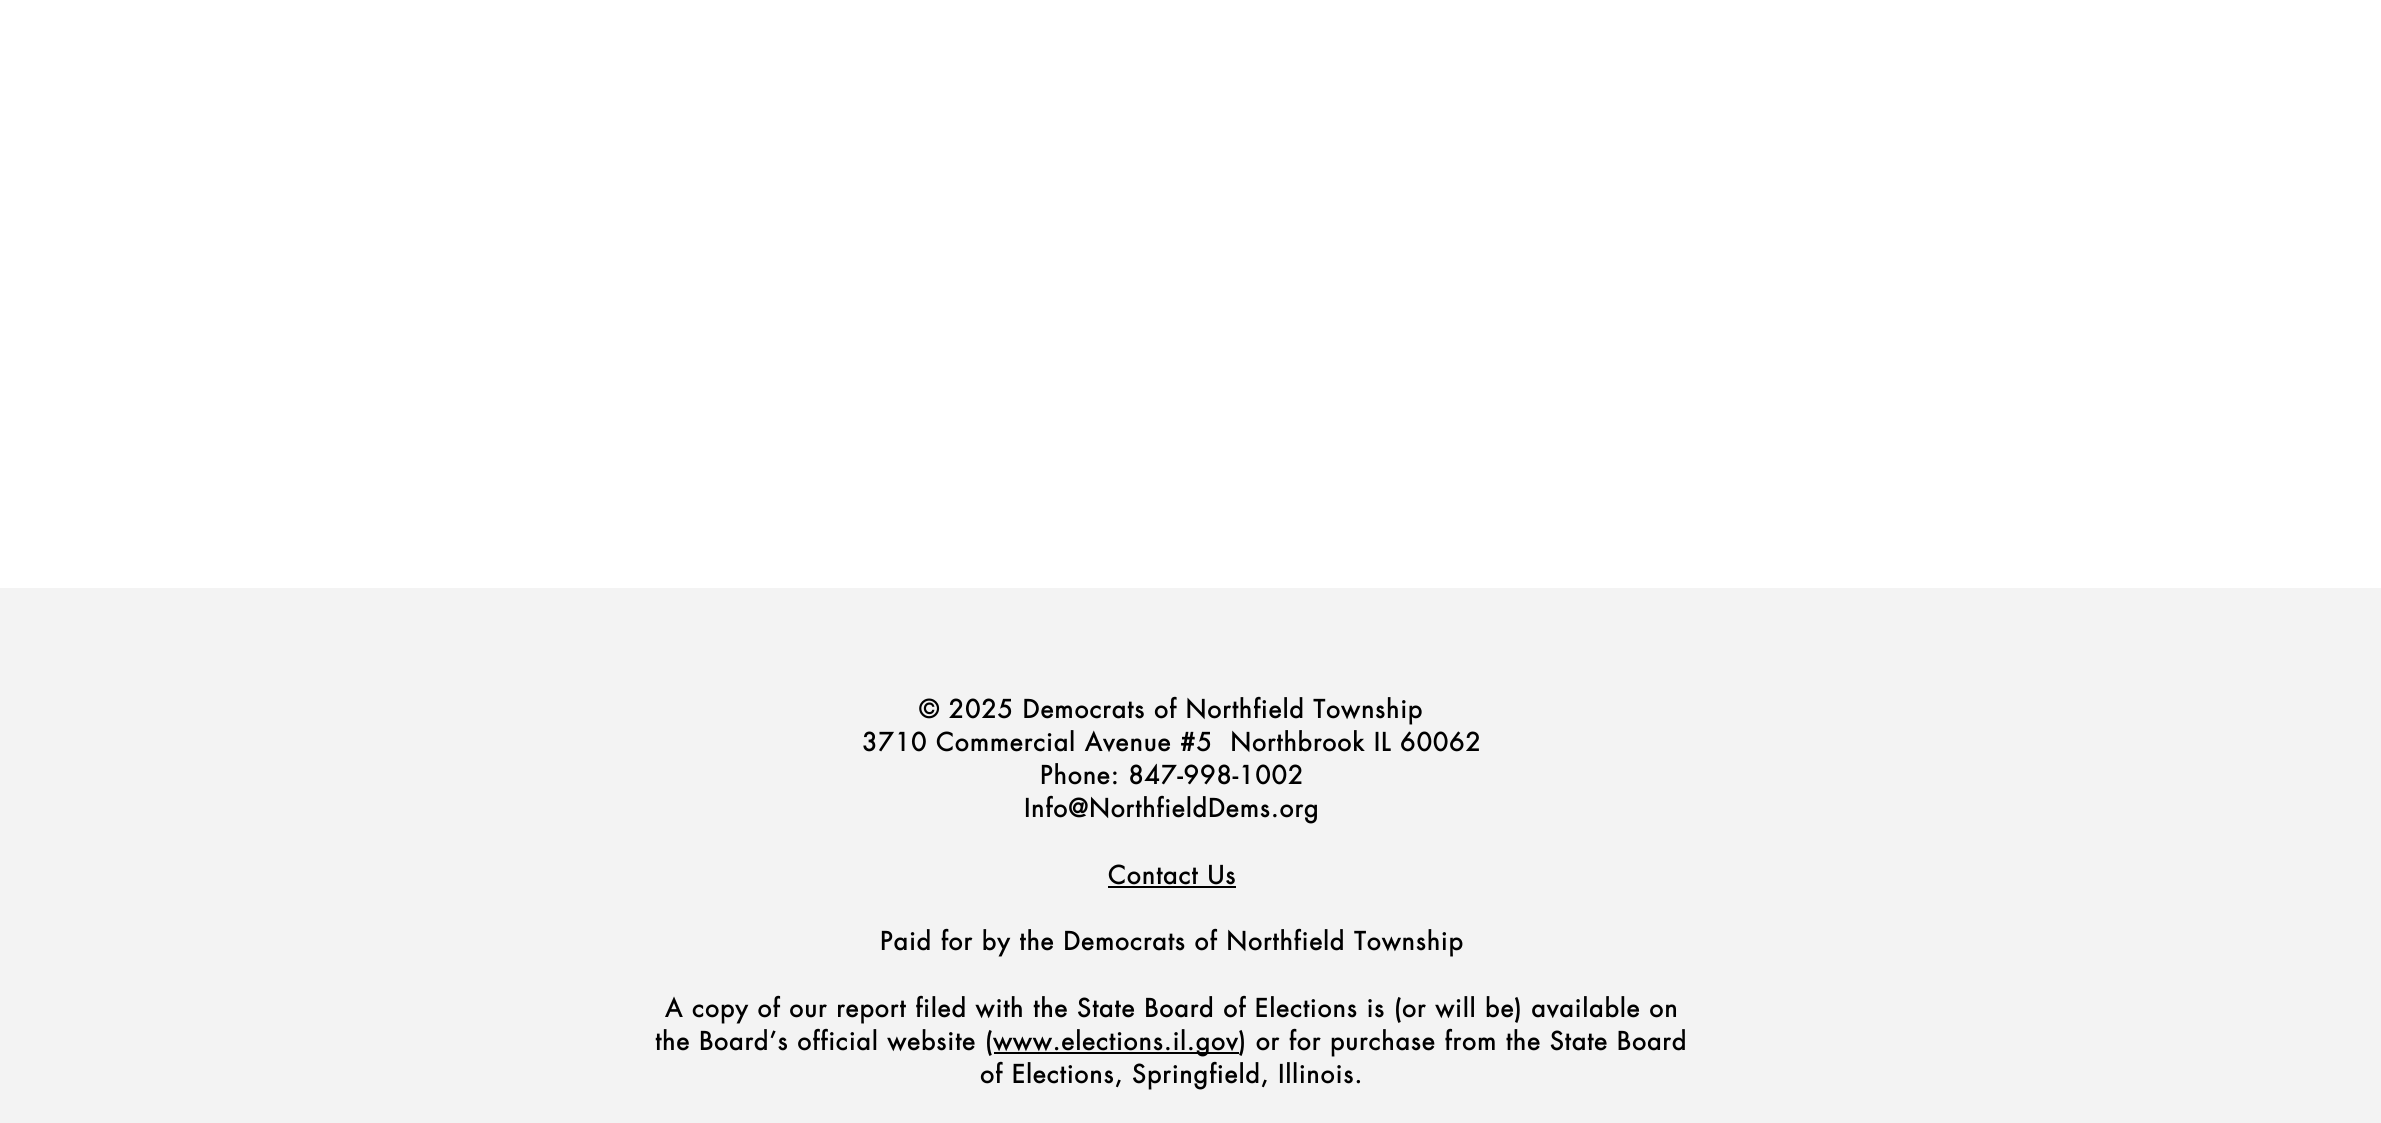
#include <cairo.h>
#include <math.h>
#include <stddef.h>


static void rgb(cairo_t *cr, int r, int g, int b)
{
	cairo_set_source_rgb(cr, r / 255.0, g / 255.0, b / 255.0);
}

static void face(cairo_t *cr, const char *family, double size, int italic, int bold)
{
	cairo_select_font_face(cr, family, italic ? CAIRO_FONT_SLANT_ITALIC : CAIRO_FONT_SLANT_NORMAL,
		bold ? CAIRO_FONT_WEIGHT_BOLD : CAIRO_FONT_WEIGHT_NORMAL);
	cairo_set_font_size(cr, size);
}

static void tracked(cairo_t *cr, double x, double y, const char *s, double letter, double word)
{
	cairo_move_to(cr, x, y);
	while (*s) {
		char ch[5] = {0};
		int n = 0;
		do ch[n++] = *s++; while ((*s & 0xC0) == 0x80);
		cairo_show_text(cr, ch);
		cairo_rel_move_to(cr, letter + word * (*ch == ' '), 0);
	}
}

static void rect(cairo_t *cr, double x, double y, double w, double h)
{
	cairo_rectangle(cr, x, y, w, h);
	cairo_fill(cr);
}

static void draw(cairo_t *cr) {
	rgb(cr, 255, 255, 255);
	cairo_paint(cr);
	rgb(cr, 243, 243, 243);
	rect(cr, 0, 588, 2381, 535);
	face(cr, "futura", 24.5, 0, 1);
	rgb(cr, 0, 0, 0);
	tracked(cr, 919, 718, "© 2025 Democrats of Northfield Township", 1.22, 0);
	tracked(cr, 862, 751, "3710 Commercial Avenue #5  Northbrook IL 60062", 1.22, 0);
	tracked(cr, 1040, 784, "Phone: 847-998-1002", 1.22, 0);
	tracked(cr, 1024, 817, "Info@NorthfieldDems.org", 1.22, 0);
	tracked(cr, 1108, 884, "Contact Us", 1.22, 0);
	rect(cr, 1108, 886, 128, 2);
	tracked(cr, 880, 950, "Paid for by the Democrats of Northfield Township", 1.22, 0);
	tracked(cr, 665, 1017, "A copy of our report filed with the State Board of Elections is (or will be) available on", 1.22, 0);
	tracked(cr, 655, 1050, "the Board’s official website (", 1.22, 0);
	rect(cr, 994, 1052, 245, 2);
	tracked(cr, 993, 1050, "www.elections.il.gov) or for purchase from the State Board", 1.22, 0);
	tracked(cr, 980, 1083, "of Elections, Springfield, Illinois.", 1.22, 0);
}

int main(void) {
	cairo_surface_t *surface = cairo_image_surface_create(CAIRO_FORMAT_RGB24, 2381, 1123);
	cairo_t *cr = cairo_create(surface);
	cairo_font_options_t *options = cairo_font_options_create();
	cairo_font_options_set_hint_metrics(options, CAIRO_HINT_METRICS_OFF);
	cairo_font_options_set_hint_style(options, CAIRO_HINT_STYLE_NONE);
	cairo_set_font_options(cr, options);
	cairo_set_miter_limit(cr, 4);
	draw(cr);
	cairo_surface_write_to_png(surface, "render.png");
	cairo_font_options_destroy(options);
	cairo_destroy(cr);
	cairo_surface_destroy(surface);
	return 0;
}
